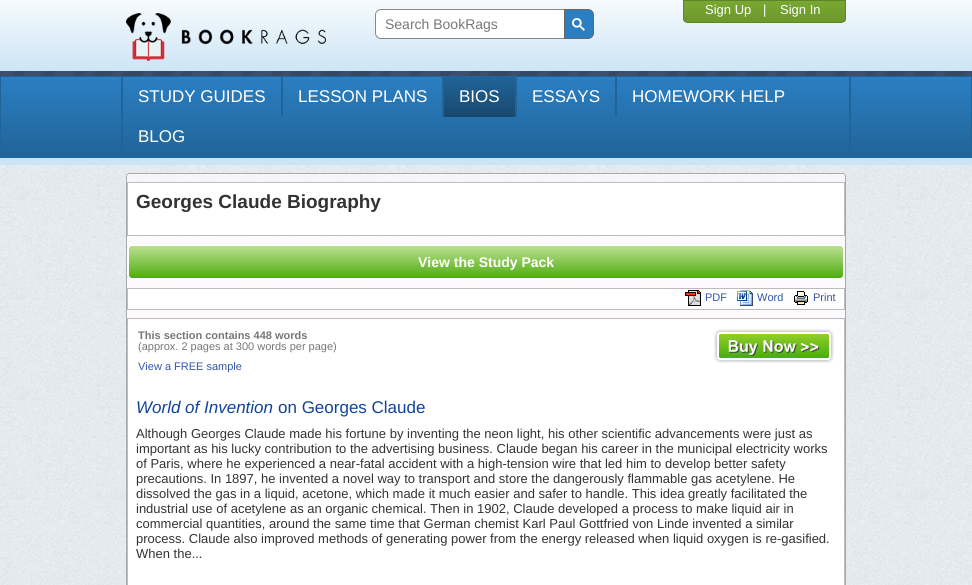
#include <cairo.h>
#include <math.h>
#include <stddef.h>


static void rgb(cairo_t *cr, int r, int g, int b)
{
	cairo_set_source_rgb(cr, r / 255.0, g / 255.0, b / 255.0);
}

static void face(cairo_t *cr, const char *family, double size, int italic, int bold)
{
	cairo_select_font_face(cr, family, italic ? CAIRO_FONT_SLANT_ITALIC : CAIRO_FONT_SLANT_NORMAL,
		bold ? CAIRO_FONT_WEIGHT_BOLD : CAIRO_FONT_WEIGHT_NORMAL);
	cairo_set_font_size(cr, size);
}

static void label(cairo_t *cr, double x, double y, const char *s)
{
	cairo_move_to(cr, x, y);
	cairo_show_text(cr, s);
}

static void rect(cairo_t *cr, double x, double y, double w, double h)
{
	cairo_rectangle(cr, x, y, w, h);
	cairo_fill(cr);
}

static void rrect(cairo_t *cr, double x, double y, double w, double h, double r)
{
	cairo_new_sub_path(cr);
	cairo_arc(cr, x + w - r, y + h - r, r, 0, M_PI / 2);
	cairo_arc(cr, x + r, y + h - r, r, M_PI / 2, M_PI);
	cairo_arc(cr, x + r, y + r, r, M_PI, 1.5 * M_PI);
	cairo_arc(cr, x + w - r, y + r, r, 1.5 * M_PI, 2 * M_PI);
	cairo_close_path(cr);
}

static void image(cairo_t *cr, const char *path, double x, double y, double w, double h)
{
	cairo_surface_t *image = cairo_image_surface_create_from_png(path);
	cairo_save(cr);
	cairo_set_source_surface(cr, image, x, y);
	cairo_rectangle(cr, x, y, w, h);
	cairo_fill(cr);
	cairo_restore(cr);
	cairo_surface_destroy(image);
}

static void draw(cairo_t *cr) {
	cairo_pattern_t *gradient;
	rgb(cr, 255, 255, 255);
	cairo_paint(cr);
	image(cr, "image0.png", 0, 165, 972, 420);
	gradient = cairo_pattern_create_linear(486, 0, 486, 71);
	cairo_pattern_add_color_stop_rgba(gradient, 0, 0.969, 0.984, 0.992, 1);
	cairo_pattern_add_color_stop_rgba(gradient, 1, 0.8, 0.898, 0.961, 1);
	cairo_set_source(cr, gradient);
	cairo_pattern_destroy(gradient);
	rect(cr, 0, 0, 972, 71);
	cairo_save(cr);
	cairo_new_path(cr);
	cairo_move_to(cr, 683, 0);
	cairo_line_to(cr, 846, 0);
	cairo_line_to(cr, 846, 18);
	cairo_curve_to(cr, 846, 21, 844, 23, 841, 23);
	cairo_line_to(cr, 688, 23);
	cairo_curve_to(cr, 685, 23, 683, 21, 683, 18);
	cairo_close_path(cr);
	cairo_clip(cr);
	gradient = cairo_pattern_create_linear(765, 1, 765, 22);
	cairo_pattern_add_color_stop_rgba(gradient, 0, 0.471, 0.659, 0.192, 1);
	cairo_pattern_add_color_stop_rgba(gradient, 1, 0.427, 0.596, 0.173, 1);
	cairo_set_source(cr, gradient);
	cairo_pattern_destroy(gradient);
	rect(cr, 683, 1, 163, 21);
	cairo_restore(cr);
	cairo_new_path(cr);
	cairo_move_to(cr, 683.5, 0.5);
	cairo_line_to(cr, 845.5, 0.5);
	cairo_line_to(cr, 845.5, 18);
	cairo_curve_to(cr, 845.5, 20.5, 843.5, 22.5, 841, 22.5);
	cairo_line_to(cr, 688, 22.5);
	cairo_curve_to(cr, 685.5, 22.5, 683.5, 20.5, 683.5, 18);
	cairo_close_path(cr);
	rgb(cr, 95, 132, 39);
	cairo_set_line_width(cr, 1);
	cairo_stroke(cr);
	face(cr, "Liberation Sans", 13, 0, 0);
	rgb(cr, 255, 255, 255);
	label(cr, 705, 14, "Sign Up");
	label(cr, 763, 14, "|");
	label(cr, 780, 14, "Sign In");
	image(cr, "image1.png", 126, 13, 200, 48);
	cairo_new_path(cr);
	cairo_move_to(cr, 381, 9.5);
	cairo_line_to(cr, 564.5, 9.5);
	cairo_line_to(cr, 564.5, 38.5);
	cairo_line_to(cr, 381, 38.5);
	cairo_curve_to(cr, 378, 38.5, 375.5, 36, 375.5, 33);
	cairo_line_to(cr, 375.5, 15);
	cairo_curve_to(cr, 375.5, 12, 378, 9.5, 381, 9.5);
	cairo_close_path(cr);
	cairo_fill_preserve(cr);
	rgb(cr, 136, 136, 136);
	cairo_stroke(cr);
	face(cr, "Liberation Sans", 14, 0, 0);
	rgb(cr, 119, 119, 119);
	label(cr, 385, 29, "Search BookRags");
	rgb(cr, 42, 127, 194);
	cairo_new_path(cr);
	cairo_move_to(cr, 564.5, 9.5);
	cairo_line_to(cr, 588, 9.5);
	cairo_curve_to(cr, 591, 9.5, 593.5, 12, 593.5, 15);
	cairo_line_to(cr, 593.5, 33);
	cairo_curve_to(cr, 593.5, 36, 591, 38.5, 588, 38.5);
	cairo_line_to(cr, 564.5, 38.5);
	cairo_close_path(cr);
	cairo_fill_preserve(cr);
	rgb(cr, 102, 102, 102);
	cairo_stroke(cr);
	image(cr, "image2.png", 572, 18, 13, 13);
	gradient = cairo_pattern_create_linear(730, 318, 235, -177);
	cairo_pattern_add_color_stop_rgba(gradient, 0, 0.239, 0.31, 0.424, 1);
	cairo_pattern_add_color_stop_rgba(gradient, 0.01, 0.239, 0.31, 0.424, 1);
	cairo_pattern_add_color_stop_rgba(gradient, 0.01, 0.216, 0.282, 0.384, 1);
	cairo_pattern_add_color_stop_rgba(gradient, 0.03, 0.216, 0.282, 0.384, 1);
	cairo_pattern_add_color_stop_rgba(gradient, 0.03, 0.239, 0.31, 0.424, 1);
	cairo_pattern_add_color_stop_rgba(gradient, 0.04, 0.239, 0.31, 0.424, 1);
	cairo_pattern_add_color_stop_rgba(gradient, 0.04, 0.216, 0.282, 0.384, 1);
	cairo_pattern_add_color_stop_rgba(gradient, 0.06, 0.216, 0.282, 0.384, 1);
	cairo_pattern_add_color_stop_rgba(gradient, 0.06, 0.239, 0.31, 0.424, 1);
	cairo_pattern_add_color_stop_rgba(gradient, 0.07, 0.239, 0.31, 0.424, 1);
	cairo_pattern_add_color_stop_rgba(gradient, 0.07, 0.216, 0.282, 0.384, 1);
	cairo_pattern_add_color_stop_rgba(gradient, 0.09, 0.216, 0.282, 0.384, 1);
	cairo_pattern_add_color_stop_rgba(gradient, 0.09, 0.239, 0.31, 0.424, 1);
	cairo_pattern_add_color_stop_rgba(gradient, 0.1, 0.239, 0.31, 0.424, 1);
	cairo_pattern_add_color_stop_rgba(gradient, 0.1, 0.216, 0.282, 0.384, 1);
	cairo_pattern_add_color_stop_rgba(gradient, 0.11, 0.216, 0.282, 0.384, 1);
	cairo_pattern_add_color_stop_rgba(gradient, 0.11, 0.239, 0.31, 0.424, 1);
	cairo_pattern_add_color_stop_rgba(gradient, 0.13, 0.239, 0.31, 0.424, 1);
	cairo_pattern_add_color_stop_rgba(gradient, 0.13, 0.216, 0.282, 0.384, 1);
	cairo_pattern_add_color_stop_rgba(gradient, 0.14, 0.216, 0.282, 0.384, 1);
	cairo_pattern_add_color_stop_rgba(gradient, 0.14, 0.239, 0.31, 0.424, 1);
	cairo_pattern_add_color_stop_rgba(gradient, 0.16, 0.239, 0.31, 0.424, 1);
	cairo_pattern_add_color_stop_rgba(gradient, 0.16, 0.216, 0.282, 0.384, 1);
	cairo_pattern_add_color_stop_rgba(gradient, 0.17, 0.216, 0.282, 0.384, 1);
	cairo_pattern_add_color_stop_rgba(gradient, 0.17, 0.239, 0.31, 0.424, 1);
	cairo_pattern_add_color_stop_rgba(gradient, 0.19, 0.239, 0.31, 0.424, 1);
	cairo_pattern_add_color_stop_rgba(gradient, 0.19, 0.216, 0.282, 0.384, 1);
	cairo_pattern_add_color_stop_rgba(gradient, 0.2, 0.216, 0.282, 0.384, 1);
	cairo_pattern_add_color_stop_rgba(gradient, 0.2, 0.239, 0.31, 0.424, 1);
	cairo_pattern_add_color_stop_rgba(gradient, 0.21, 0.239, 0.31, 0.424, 1);
	cairo_pattern_add_color_stop_rgba(gradient, 0.21, 0.216, 0.282, 0.384, 1);
	cairo_pattern_add_color_stop_rgba(gradient, 0.23, 0.216, 0.282, 0.384, 1);
	cairo_pattern_add_color_stop_rgba(gradient, 0.23, 0.239, 0.31, 0.424, 1);
	cairo_pattern_add_color_stop_rgba(gradient, 0.24, 0.239, 0.31, 0.424, 1);
	cairo_pattern_add_color_stop_rgba(gradient, 0.24, 0.216, 0.282, 0.384, 1);
	cairo_pattern_add_color_stop_rgba(gradient, 0.26, 0.216, 0.282, 0.384, 1);
	cairo_pattern_add_color_stop_rgba(gradient, 0.26, 0.239, 0.31, 0.424, 1);
	cairo_pattern_add_color_stop_rgba(gradient, 0.27, 0.239, 0.31, 0.424, 1);
	cairo_pattern_add_color_stop_rgba(gradient, 0.27, 0.216, 0.282, 0.384, 1);
	cairo_pattern_add_color_stop_rgba(gradient, 0.29, 0.216, 0.282, 0.384, 1);
	cairo_pattern_add_color_stop_rgba(gradient, 0.29, 0.239, 0.31, 0.424, 1);
	cairo_pattern_add_color_stop_rgba(gradient, 0.3, 0.239, 0.31, 0.424, 1);
	cairo_pattern_add_color_stop_rgba(gradient, 0.3, 0.216, 0.282, 0.384, 1);
	cairo_pattern_add_color_stop_rgba(gradient, 0.31, 0.216, 0.282, 0.384, 1);
	cairo_pattern_add_color_stop_rgba(gradient, 0.31, 0.239, 0.31, 0.424, 1);
	cairo_pattern_add_color_stop_rgba(gradient, 0.33, 0.239, 0.31, 0.424, 1);
	cairo_pattern_add_color_stop_rgba(gradient, 0.33, 0.216, 0.282, 0.384, 1);
	cairo_pattern_add_color_stop_rgba(gradient, 0.34, 0.216, 0.282, 0.384, 1);
	cairo_pattern_add_color_stop_rgba(gradient, 0.34, 0.239, 0.31, 0.424, 1);
	cairo_pattern_add_color_stop_rgba(gradient, 0.36, 0.239, 0.31, 0.424, 1);
	cairo_pattern_add_color_stop_rgba(gradient, 0.36, 0.216, 0.282, 0.384, 1);
	cairo_pattern_add_color_stop_rgba(gradient, 0.37, 0.216, 0.282, 0.384, 1);
	cairo_pattern_add_color_stop_rgba(gradient, 0.37, 0.239, 0.31, 0.424, 1);
	cairo_pattern_add_color_stop_rgba(gradient, 0.39, 0.239, 0.31, 0.424, 1);
	cairo_pattern_add_color_stop_rgba(gradient, 0.39, 0.216, 0.282, 0.384, 1);
	cairo_pattern_add_color_stop_rgba(gradient, 0.4, 0.216, 0.282, 0.384, 1);
	cairo_pattern_add_color_stop_rgba(gradient, 0.4, 0.239, 0.31, 0.424, 1);
	cairo_pattern_add_color_stop_rgba(gradient, 0.41, 0.239, 0.31, 0.424, 1);
	cairo_pattern_add_color_stop_rgba(gradient, 0.41, 0.216, 0.282, 0.384, 1);
	cairo_pattern_add_color_stop_rgba(gradient, 0.43, 0.216, 0.282, 0.384, 1);
	cairo_pattern_add_color_stop_rgba(gradient, 0.43, 0.239, 0.31, 0.424, 1);
	cairo_pattern_add_color_stop_rgba(gradient, 0.44, 0.239, 0.31, 0.424, 1);
	cairo_pattern_add_color_stop_rgba(gradient, 0.44, 0.216, 0.282, 0.384, 1);
	cairo_pattern_add_color_stop_rgba(gradient, 0.46, 0.216, 0.282, 0.384, 1);
	cairo_pattern_add_color_stop_rgba(gradient, 0.46, 0.239, 0.31, 0.424, 1);
	cairo_pattern_add_color_stop_rgba(gradient, 0.47, 0.239, 0.31, 0.424, 1);
	cairo_pattern_add_color_stop_rgba(gradient, 0.47, 0.216, 0.282, 0.384, 1);
	cairo_pattern_add_color_stop_rgba(gradient, 0.49, 0.216, 0.282, 0.384, 1);
	cairo_pattern_add_color_stop_rgba(gradient, 0.49, 0.239, 0.31, 0.424, 1);
	cairo_pattern_add_color_stop_rgba(gradient, 0.5, 0.239, 0.31, 0.424, 1);
	cairo_pattern_add_color_stop_rgba(gradient, 0.5, 0.216, 0.282, 0.384, 1);
	cairo_pattern_add_color_stop_rgba(gradient, 0.51, 0.216, 0.282, 0.384, 1);
	cairo_pattern_add_color_stop_rgba(gradient, 0.51, 0.239, 0.31, 0.424, 1);
	cairo_pattern_add_color_stop_rgba(gradient, 0.53, 0.239, 0.31, 0.424, 1);
	cairo_pattern_add_color_stop_rgba(gradient, 0.53, 0.216, 0.282, 0.384, 1);
	cairo_pattern_add_color_stop_rgba(gradient, 0.54, 0.216, 0.282, 0.384, 1);
	cairo_pattern_add_color_stop_rgba(gradient, 0.54, 0.239, 0.31, 0.424, 1);
	cairo_pattern_add_color_stop_rgba(gradient, 0.56, 0.239, 0.31, 0.424, 1);
	cairo_pattern_add_color_stop_rgba(gradient, 0.56, 0.216, 0.282, 0.384, 1);
	cairo_pattern_add_color_stop_rgba(gradient, 0.57, 0.216, 0.282, 0.384, 1);
	cairo_pattern_add_color_stop_rgba(gradient, 0.57, 0.239, 0.31, 0.424, 1);
	cairo_pattern_add_color_stop_rgba(gradient, 0.59, 0.239, 0.31, 0.424, 1);
	cairo_pattern_add_color_stop_rgba(gradient, 0.59, 0.216, 0.282, 0.384, 1);
	cairo_pattern_add_color_stop_rgba(gradient, 0.6, 0.216, 0.282, 0.384, 1);
	cairo_pattern_add_color_stop_rgba(gradient, 0.6, 0.239, 0.31, 0.424, 1);
	cairo_pattern_add_color_stop_rgba(gradient, 0.61, 0.239, 0.31, 0.424, 1);
	cairo_pattern_add_color_stop_rgba(gradient, 0.61, 0.216, 0.282, 0.384, 1);
	cairo_pattern_add_color_stop_rgba(gradient, 0.63, 0.216, 0.282, 0.384, 1);
	cairo_pattern_add_color_stop_rgba(gradient, 0.63, 0.239, 0.31, 0.424, 1);
	cairo_pattern_add_color_stop_rgba(gradient, 0.64, 0.239, 0.31, 0.424, 1);
	cairo_pattern_add_color_stop_rgba(gradient, 0.64, 0.216, 0.282, 0.384, 1);
	cairo_pattern_add_color_stop_rgba(gradient, 0.66, 0.216, 0.282, 0.384, 1);
	cairo_pattern_add_color_stop_rgba(gradient, 0.66, 0.239, 0.31, 0.424, 1);
	cairo_pattern_add_color_stop_rgba(gradient, 0.67, 0.239, 0.31, 0.424, 1);
	cairo_pattern_add_color_stop_rgba(gradient, 0.67, 0.216, 0.282, 0.384, 1);
	cairo_pattern_add_color_stop_rgba(gradient, 0.69, 0.216, 0.282, 0.384, 1);
	cairo_pattern_add_color_stop_rgba(gradient, 0.69, 0.239, 0.31, 0.424, 1);
	cairo_pattern_add_color_stop_rgba(gradient, 0.7, 0.239, 0.31, 0.424, 1);
	cairo_pattern_add_color_stop_rgba(gradient, 0.7, 0.216, 0.282, 0.384, 1);
	cairo_pattern_add_color_stop_rgba(gradient, 0.71, 0.216, 0.282, 0.384, 1);
	cairo_pattern_add_color_stop_rgba(gradient, 0.71, 0.239, 0.31, 0.424, 1);
	cairo_pattern_add_color_stop_rgba(gradient, 0.73, 0.239, 0.31, 0.424, 1);
	cairo_pattern_add_color_stop_rgba(gradient, 0.73, 0.216, 0.282, 0.384, 1);
	cairo_pattern_add_color_stop_rgba(gradient, 0.74, 0.216, 0.282, 0.384, 1);
	cairo_pattern_add_color_stop_rgba(gradient, 0.74, 0.239, 0.31, 0.424, 1);
	cairo_pattern_add_color_stop_rgba(gradient, 0.76, 0.239, 0.31, 0.424, 1);
	cairo_pattern_add_color_stop_rgba(gradient, 0.76, 0.216, 0.282, 0.384, 1);
	cairo_pattern_add_color_stop_rgba(gradient, 0.77, 0.216, 0.282, 0.384, 1);
	cairo_pattern_add_color_stop_rgba(gradient, 0.77, 0.239, 0.31, 0.424, 1);
	cairo_pattern_add_color_stop_rgba(gradient, 0.79, 0.239, 0.31, 0.424, 1);
	cairo_pattern_add_color_stop_rgba(gradient, 0.79, 0.216, 0.282, 0.384, 1);
	cairo_pattern_add_color_stop_rgba(gradient, 0.8, 0.216, 0.282, 0.384, 1);
	cairo_pattern_add_color_stop_rgba(gradient, 0.8, 0.239, 0.31, 0.424, 1);
	cairo_pattern_add_color_stop_rgba(gradient, 0.81, 0.239, 0.31, 0.424, 1);
	cairo_pattern_add_color_stop_rgba(gradient, 0.81, 0.216, 0.282, 0.384, 1);
	cairo_pattern_add_color_stop_rgba(gradient, 0.83, 0.216, 0.282, 0.384, 1);
	cairo_pattern_add_color_stop_rgba(gradient, 0.83, 0.239, 0.31, 0.424, 1);
	cairo_pattern_add_color_stop_rgba(gradient, 0.84, 0.239, 0.31, 0.424, 1);
	cairo_pattern_add_color_stop_rgba(gradient, 0.84, 0.216, 0.282, 0.384, 1);
	cairo_pattern_add_color_stop_rgba(gradient, 0.86, 0.216, 0.282, 0.384, 1);
	cairo_pattern_add_color_stop_rgba(gradient, 0.86, 0.239, 0.31, 0.424, 1);
	cairo_pattern_add_color_stop_rgba(gradient, 0.87, 0.239, 0.31, 0.424, 1);
	cairo_pattern_add_color_stop_rgba(gradient, 0.87, 0.216, 0.282, 0.384, 1);
	cairo_pattern_add_color_stop_rgba(gradient, 0.89, 0.216, 0.282, 0.384, 1);
	cairo_pattern_add_color_stop_rgba(gradient, 0.89, 0.239, 0.31, 0.424, 1);
	cairo_pattern_add_color_stop_rgba(gradient, 0.9, 0.239, 0.31, 0.424, 1);
	cairo_pattern_add_color_stop_rgba(gradient, 0.9, 0.216, 0.282, 0.384, 1);
	cairo_pattern_add_color_stop_rgba(gradient, 0.91, 0.216, 0.282, 0.384, 1);
	cairo_pattern_add_color_stop_rgba(gradient, 0.91, 0.239, 0.31, 0.424, 1);
	cairo_pattern_add_color_stop_rgba(gradient, 0.93, 0.239, 0.31, 0.424, 1);
	cairo_pattern_add_color_stop_rgba(gradient, 0.93, 0.216, 0.282, 0.384, 1);
	cairo_pattern_add_color_stop_rgba(gradient, 0.94, 0.216, 0.282, 0.384, 1);
	cairo_pattern_add_color_stop_rgba(gradient, 0.94, 0.239, 0.31, 0.424, 1);
	cairo_pattern_add_color_stop_rgba(gradient, 0.96, 0.239, 0.31, 0.424, 1);
	cairo_pattern_add_color_stop_rgba(gradient, 0.96, 0.216, 0.282, 0.384, 1);
	cairo_pattern_add_color_stop_rgba(gradient, 0.97, 0.216, 0.282, 0.384, 1);
	cairo_pattern_add_color_stop_rgba(gradient, 0.97, 0.239, 0.31, 0.424, 1);
	cairo_pattern_add_color_stop_rgba(gradient, 0.99, 0.239, 0.31, 0.424, 1);
	cairo_pattern_add_color_stop_rgba(gradient, 0.99, 0.216, 0.282, 0.384, 1);
	cairo_pattern_add_color_stop_rgba(gradient, 1, 0.216, 0.282, 0.384, 1);
	cairo_set_source(cr, gradient);
	cairo_pattern_destroy(gradient);
	rect(cr, 0, 71, 972, 5);
	gradient = cairo_pattern_create_linear(486, 77, 486, 157);
	cairo_pattern_add_color_stop_rgba(gradient, 0, 0.165, 0.498, 0.761, 1);
	cairo_pattern_add_color_stop_rgba(gradient, 1, 0.129, 0.392, 0.596, 1);
	cairo_set_source(cr, gradient);
	cairo_pattern_destroy(gradient);
	rect(cr, 1, 77, 970, 80);
	cairo_rectangle(cr, 0.5, 76.5, 971, 81);
	rgb(cr, 33, 100, 152);
	cairo_stroke(cr);
	rect(cr, 849, 77, 2, 80);
	rect(cr, 121, 77, 2, 80);
	face(cr, "Liberation Sans", 17, 0, 0);
	rgb(cr, 255, 255, 255);
	label(cr, 138, 102, "STUDY GUIDES");
	rgb(cr, 33, 100, 152);
	rect(cr, 281, 77, 2, 40);
	rgb(cr, 255, 255, 255);
	label(cr, 298, 102, "LESSON PLANS");
	gradient = cairo_pattern_create_linear(480, 77, 480, 117);
	cairo_pattern_add_color_stop_rgba(gradient, 0, 0.129, 0.392, 0.596, 1);
	cairo_pattern_add_color_stop_rgba(gradient, 1, 0.094, 0.282, 0.431, 1);
	cairo_set_source(cr, gradient);
	cairo_pattern_destroy(gradient);
	rect(cr, 444, 77, 71, 40);
	rgb(cr, 33, 100, 152);
	rect(cr, 442, 77, 2, 40);
	rgb(cr, 255, 255, 255);
	label(cr, 459, 102, "BIOS");
	rgb(cr, 33, 100, 152);
	rect(cr, 515, 77, 2, 40);
	rgb(cr, 255, 255, 255);
	label(cr, 532, 102, "ESSAYS");
	rgb(cr, 33, 100, 152);
	rect(cr, 615, 77, 2, 40);
	rgb(cr, 255, 255, 255);
	label(cr, 632, 102, "HOMEWORK HELP");
	label(cr, 138, 142, "BLOG");
	rgb(cr, 204, 229, 245);
	rect(cr, 0, 158, 972, 7);
	cairo_set_source_rgba(cr, 1, 0.988, 0.996, 0.67);
	rect(cr, 126, 173, 720, 145);
	rrect(cr, 126.5, 173.5, 719, 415, 2.5);
	rgb(cr, 170, 170, 170);
	cairo_stroke(cr);
	cairo_set_source_rgba(cr, 1, 0.988, 0.996, 0.67);
	rect(cr, 127, 236, 718, 82);
	rgb(cr, 255, 255, 255);
	cairo_rectangle(cr, 127.5, 182.5, 717, 53);
	cairo_fill_preserve(cr);
	rgb(cr, 187, 187, 187);
	cairo_stroke(cr);
	face(cr, "Liberation Sans", 19, 0, 1);
	rgb(cr, 51, 51, 51);
	label(cr, 136, 208, "Georges Claude Biography");
	cairo_save(cr);
	rrect(cr, 127, 244, 718, 36, 5);
	cairo_clip(cr);
	gradient = cairo_pattern_create_linear(486, 246, 486, 278);
	cairo_pattern_add_color_stop_rgba(gradient, 0, 0.733, 0.878, 0.565, 1);
	cairo_pattern_add_color_stop_rgba(gradient, 1, 0.31, 0.678, 0.063, 1);
	cairo_set_source(cr, gradient);
	cairo_pattern_destroy(gradient);
	rect(cr, 127, 246, 718, 32);
	cairo_restore(cr);
	rrect(cr, 128, 245, 716, 34, 4);
	rgb(cr, 255, 255, 255);
	cairo_set_line_width(cr, 2);
	cairo_stroke(cr);
	face(cr, "Liberation Sans", 14, 0, 1);
	label(cr, 418, 267, "View the Study Pack");
	cairo_rectangle(cr, 127.5, 288.5, 717, 21);
	cairo_fill_preserve(cr);
	rgb(cr, 187, 187, 187);
	cairo_set_line_width(cr, 1);
	cairo_stroke(cr);
	image(cr, "image3.png", 685, 290, 16, 16);
	face(cr, "Liberation Sans", 11, 0, 0);
	rgb(cr, 51, 85, 170);
	label(cr, 705, 301, "PDF");
	image(cr, "image4.png", 737, 290, 16, 16);
	label(cr, 757, 301, "Word");
	image(cr, "image5.png", 794, 291, 14, 14);
	label(cr, 813, 301, "Print");
	rgb(cr, 255, 255, 255);
	cairo_rectangle(cr, 127.5, 318.5, 717, 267);
	cairo_fill_preserve(cr);
	rgb(cr, 187, 187, 187);
	cairo_stroke(cr);
	face(cr, "Liberation Sans", 11, 0, 1);
	rgb(cr, 119, 119, 119);
	label(cr, 138, 339, "This section contains 448 words");
	face(cr, "Liberation Sans", 11, 0, 0);
	label(cr, 138, 350, "(approx. 2 pages at 300 words per page)");
	rgb(cr, 51, 85, 170);
	label(cr, 138, 370, "View a FREE sample");
	image(cr, "image6.png", 714, 329, 120, 34);
	face(cr, "Liberation Sans", 17, 1, 0);
	rgb(cr, 17, 68, 153);
	label(cr, 136, 413, "World of Invention");
	face(cr, "Liberation Sans", 17, 0, 0);
	label(cr, 278, 413, "on Georges Claude");
	face(cr, "Liberation Sans", 13, 0, 0);
	rgb(cr, 51, 51, 51);
	label(cr, 136, 438, "Although Georges Claude made his fortune by inventing the neon light, his other scientific advancements were just as");
	label(cr, 136, 453, "important as his lucky contribution to the advertising business. Claude began his career in the municipal electricity works");
	label(cr, 136, 468, "of Paris, where he experienced a near-fatal accident with a high-tension wire that led him to develop better safety");
	label(cr, 136, 483, "precautions. In 1897, he invented a novel way to transport and store the dangerously flammable gas acetylene. He");
	label(cr, 136, 498, "dissolved the gas in a liquid, acetone, which made it much easier and safer to handle. This idea greatly facilitated the");
	label(cr, 136, 513, "industrial use of acetylene as an organic chemical. Then in 1902, Claude developed a process to make liquid air in");
	label(cr, 136, 528, "commercial quantities, around the same time that German chemist Karl Paul Gottfried von Linde invented a similar");
	label(cr, 136, 543, "process. Claude also improved methods of generating power from the energy released when liquid oxygen is re-gasified.");
	label(cr, 136, 558, "When the...");
}

int main(void) {
	cairo_surface_t *surface = cairo_image_surface_create(CAIRO_FORMAT_RGB24, 972, 585);
	cairo_t *cr = cairo_create(surface);
	cairo_font_options_t *options = cairo_font_options_create();
	cairo_font_options_set_hint_metrics(options, CAIRO_HINT_METRICS_OFF);
	cairo_font_options_set_hint_style(options, CAIRO_HINT_STYLE_NONE);
	cairo_set_font_options(cr, options);
	cairo_set_miter_limit(cr, 4);
	draw(cr);
	cairo_surface_write_to_png(surface, "render.png");
	cairo_font_options_destroy(options);
	cairo_destroy(cr);
	cairo_surface_destroy(surface);
	return 0;
}
